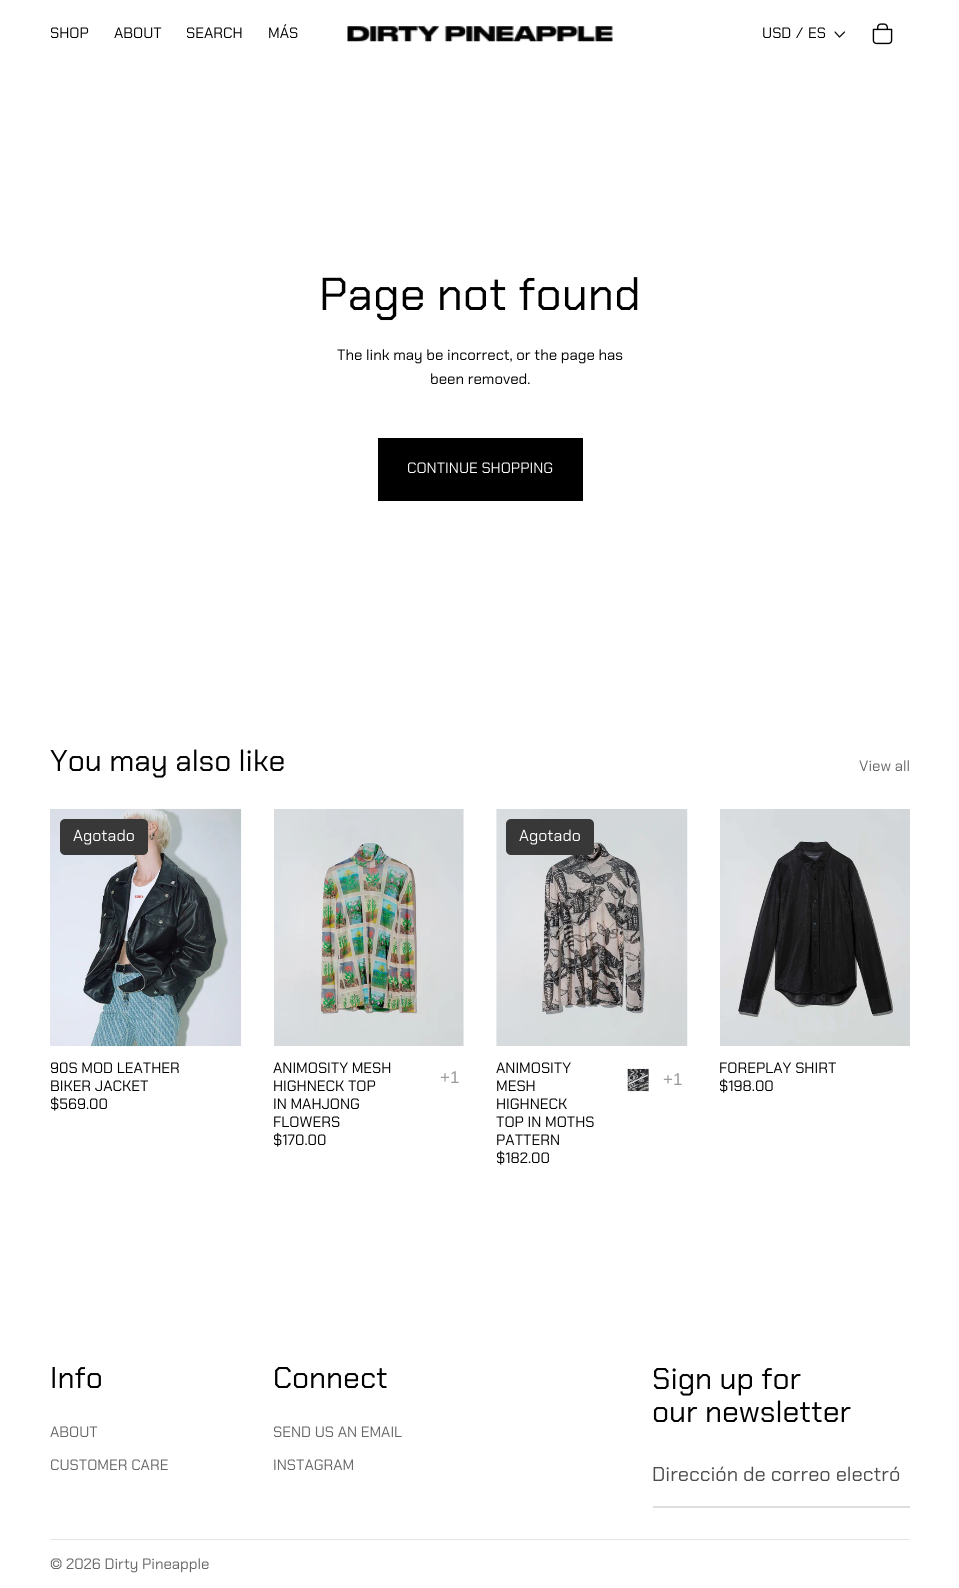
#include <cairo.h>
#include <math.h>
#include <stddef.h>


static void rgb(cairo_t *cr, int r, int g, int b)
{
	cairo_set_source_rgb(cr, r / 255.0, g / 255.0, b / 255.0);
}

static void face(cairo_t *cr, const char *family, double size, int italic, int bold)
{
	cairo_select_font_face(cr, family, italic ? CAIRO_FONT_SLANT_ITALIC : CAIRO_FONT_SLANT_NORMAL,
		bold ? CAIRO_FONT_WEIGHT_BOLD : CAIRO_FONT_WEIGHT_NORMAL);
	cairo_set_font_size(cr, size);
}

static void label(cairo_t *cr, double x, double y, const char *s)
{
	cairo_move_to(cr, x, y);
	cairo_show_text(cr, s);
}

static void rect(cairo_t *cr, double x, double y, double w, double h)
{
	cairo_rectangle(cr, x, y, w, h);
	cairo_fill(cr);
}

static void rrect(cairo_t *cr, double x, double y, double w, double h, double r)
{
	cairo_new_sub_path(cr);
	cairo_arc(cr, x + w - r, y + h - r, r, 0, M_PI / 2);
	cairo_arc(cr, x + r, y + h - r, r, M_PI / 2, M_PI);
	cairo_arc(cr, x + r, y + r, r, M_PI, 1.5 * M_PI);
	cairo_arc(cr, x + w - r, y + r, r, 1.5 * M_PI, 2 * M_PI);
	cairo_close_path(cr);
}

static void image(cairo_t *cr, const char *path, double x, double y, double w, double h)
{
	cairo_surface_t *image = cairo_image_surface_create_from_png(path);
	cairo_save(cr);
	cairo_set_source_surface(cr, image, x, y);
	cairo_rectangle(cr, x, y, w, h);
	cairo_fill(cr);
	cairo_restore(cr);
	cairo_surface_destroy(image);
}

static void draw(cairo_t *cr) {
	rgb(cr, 255, 255, 255);
	cairo_paint(cr);
	face(cr, "Chakra Petch", 15, 0, 0);
	rgb(cr, 0, 0, 0);
	label(cr, 50, 38, "SHOP");
	label(cr, 114, 38, "ABOUT");
	label(cr, 186, 38, "SEARCH");
	label(cr, 268, 38, "MÁS");
	image(cr, "image0.png", 347, 26, 266, 16);
	label(cr, 762, 38, "USD");
	label(cr, 796, 38, "/");
	label(cr, 808, 38, "ES");
	cairo_new_path(cr);
	cairo_move_to(cr, 844.5, 32);
	cairo_line_to(cr, 839.5, 37);
	cairo_line_to(cr, 835, 32);
	cairo_set_line_width(cr, 1.2);
	cairo_set_line_cap(cr, CAIRO_LINE_CAP_ROUND);
	cairo_set_line_join(cr, CAIRO_LINE_JOIN_ROUND);
	cairo_stroke(cr);
	image(cr, "image1.png", 872, 23, 21, 22);
	face(cr, "Chakra Petch", 46, 0, 0);
	label(cr, 319, 310, "Page not found");
	face(cr, "Chakra Petch", 15, 0, 0);
	label(cr, 337, 360, "The link may be incorrect, or the page has");
	label(cr, 430, 384, "been removed.");
	rect(cr, 378, 438, 205, 63);
	rgb(cr, 255, 255, 255);
	label(cr, 407, 473, "CONTINUE SHOPPING");
	face(cr, "Chakra Petch", 30, 0, 0);
	rgb(cr, 0, 0, 0);
	label(cr, 50, 771, "You may also like");
	face(cr, "Chakra Petch", 15, 0, 0);
	rgb(cr, 102, 102, 102);
	label(cr, 859, 771, "View all");
	image(cr, "image2.png", 50, 808, 192, 239);
	rgb(cr, 56, 56, 56);
	rrect(cr, 60, 819, 88, 36, 5);
	cairo_fill(cr);
	face(cr, "Chakra Petch", 16, 0, 0);
	rgb(cr, 255, 255, 255);
	label(cr, 73, 841, "Agotado");
	face(cr, "Chakra Petch", 15, 0, 0);
	rgb(cr, 0, 0, 0);
	label(cr, 50, 1073, "90S MOD LEATHER");
	label(cr, 50, 1091, "BIKER JACKET");
	label(cr, 50, 1109, "$569.00");
	image(cr, "image3.png", 274, 809, 190, 237);
	label(cr, 273, 1073, "ANIMOSITY MESH");
	label(cr, 273, 1091, "HIGHNECK TOP");
	label(cr, 273, 1109, "IN MAHJONG");
	label(cr, 273, 1127, "FLOWERS");
	label(cr, 273, 1145, "$170.00");
	face(cr, "Liberation Sans", 17, 0, 0);
	rgb(cr, 153, 153, 153);
	label(cr, 440, 1083, "+1");
	image(cr, "image4.png", 496, 809, 192, 237);
	rgb(cr, 56, 56, 56);
	rrect(cr, 506, 819, 88, 36, 5);
	cairo_fill(cr);
	face(cr, "Chakra Petch", 16, 0, 0);
	rgb(cr, 255, 255, 255);
	label(cr, 519, 841, "Agotado");
	face(cr, "Chakra Petch", 15, 0, 0);
	rgb(cr, 0, 0, 0);
	label(cr, 496, 1073, "ANIMOSITY");
	label(cr, 496, 1091, "MESH");
	label(cr, 496, 1109, "HIGHNECK");
	label(cr, 496, 1127, "TOP IN MOTHS");
	label(cr, 496, 1145, "PATTERN");
	label(cr, 496, 1163, "$182.00");
	image(cr, "image5.png", 627, 1068, 22, 24);
	cairo_rectangle(cr, 628.5, 1069.5, 20, 21);
	cairo_set_source_rgba(cr, 0, 0, 0, 0.1);
	cairo_set_line_width(cr, 1);
	cairo_set_line_cap(cr, CAIRO_LINE_CAP_BUTT);
	cairo_set_line_join(cr, CAIRO_LINE_JOIN_MITER);
	cairo_stroke(cr);
	cairo_save(cr);
	cairo_rectangle(cr, 629, 1070, 19, 20);
	cairo_clip(cr);
	cairo_new_path(cr);
	cairo_move_to(cr, 659, 1070);
	cairo_line_to(cr, 617.5, 1089);
	cairo_move_to(cr, 659, 1070);
	cairo_line_to(cr, 617.5, 1089);
	rgb(cr, 230, 230, 230);
	cairo_set_line_width(cr, 1.2);
	cairo_stroke(cr);
	cairo_restore(cr);
	face(cr, "Liberation Sans", 17, 0, 0);
	rgb(cr, 153, 153, 153);
	label(cr, 663, 1085, "+1");
	image(cr, "image6.png", 720, 809, 190, 237);
	face(cr, "Chakra Petch", 15, 0, 0);
	rgb(cr, 0, 0, 0);
	label(cr, 719, 1073, "FOREPLAY SHIRT");
	label(cr, 719, 1091, "$198.00");
	face(cr, "Chakra Petch", 30, 0, 0);
	label(cr, 50, 1388, "Info");
	face(cr, "Chakra Petch", 15, 0, 0);
	rgb(cr, 102, 102, 102);
	label(cr, 50, 1437, "ABOUT");
	label(cr, 50, 1470, "CUSTOMER CARE");
	face(cr, "Chakra Petch", 30, 0, 0);
	rgb(cr, 0, 0, 0);
	label(cr, 273, 1388, "Connect");
	face(cr, "Chakra Petch", 15, 0, 0);
	rgb(cr, 102, 102, 102);
	label(cr, 273, 1437, "SEND US AN EMAIL");
	label(cr, 273, 1470, "INSTAGRAM");
	face(cr, "Chakra Petch", 30, 0, 0);
	rgb(cr, 0, 0, 0);
	label(cr, 652, 1389, "Sign up for");
	label(cr, 652, 1422, "our newsletter");
	cairo_save(cr);
	cairo_rectangle(cr, 50, 1335, 860, 204);
	cairo_clip(cr);
	rgb(cr, 222, 222, 222);
	cairo_new_path(cr);
	cairo_move_to(cr, 653, 1506);
	cairo_line_to(cr, 653, 1508);
	cairo_line_to(cr, 954, 1508);
	cairo_line_to(cr, 954, 1445);
	cairo_line_to(cr, 954, 1506);
	cairo_close_path(cr);
	cairo_fill(cr);
	cairo_restore(cr);
	face(cr, "Chakra Petch", 20, 0, 0);
	rgb(cr, 77, 77, 77);
	label(cr, 652, 1481, "Dirección de correo electró");
	rgb(cr, 230, 230, 230);
	rect(cr, 50, 1539, 860, 1);
	face(cr, "Chakra Petch", 15, 0, 0);
	rgb(cr, 102, 102, 102);
	label(cr, 50, 1569, "© 2026 Dirty Pineapple");
}

int main(void) {
	cairo_surface_t *surface = cairo_image_surface_create(CAIRO_FORMAT_RGB24, 959, 1588);
	cairo_t *cr = cairo_create(surface);
	cairo_font_options_t *options = cairo_font_options_create();
	cairo_font_options_set_hint_metrics(options, CAIRO_HINT_METRICS_OFF);
	cairo_font_options_set_hint_style(options, CAIRO_HINT_STYLE_NONE);
	cairo_set_font_options(cr, options);
	cairo_set_miter_limit(cr, 4);
	draw(cr);
	cairo_surface_write_to_png(surface, "render.png");
	cairo_font_options_destroy(options);
	cairo_destroy(cr);
	cairo_surface_destroy(surface);
	return 0;
}
